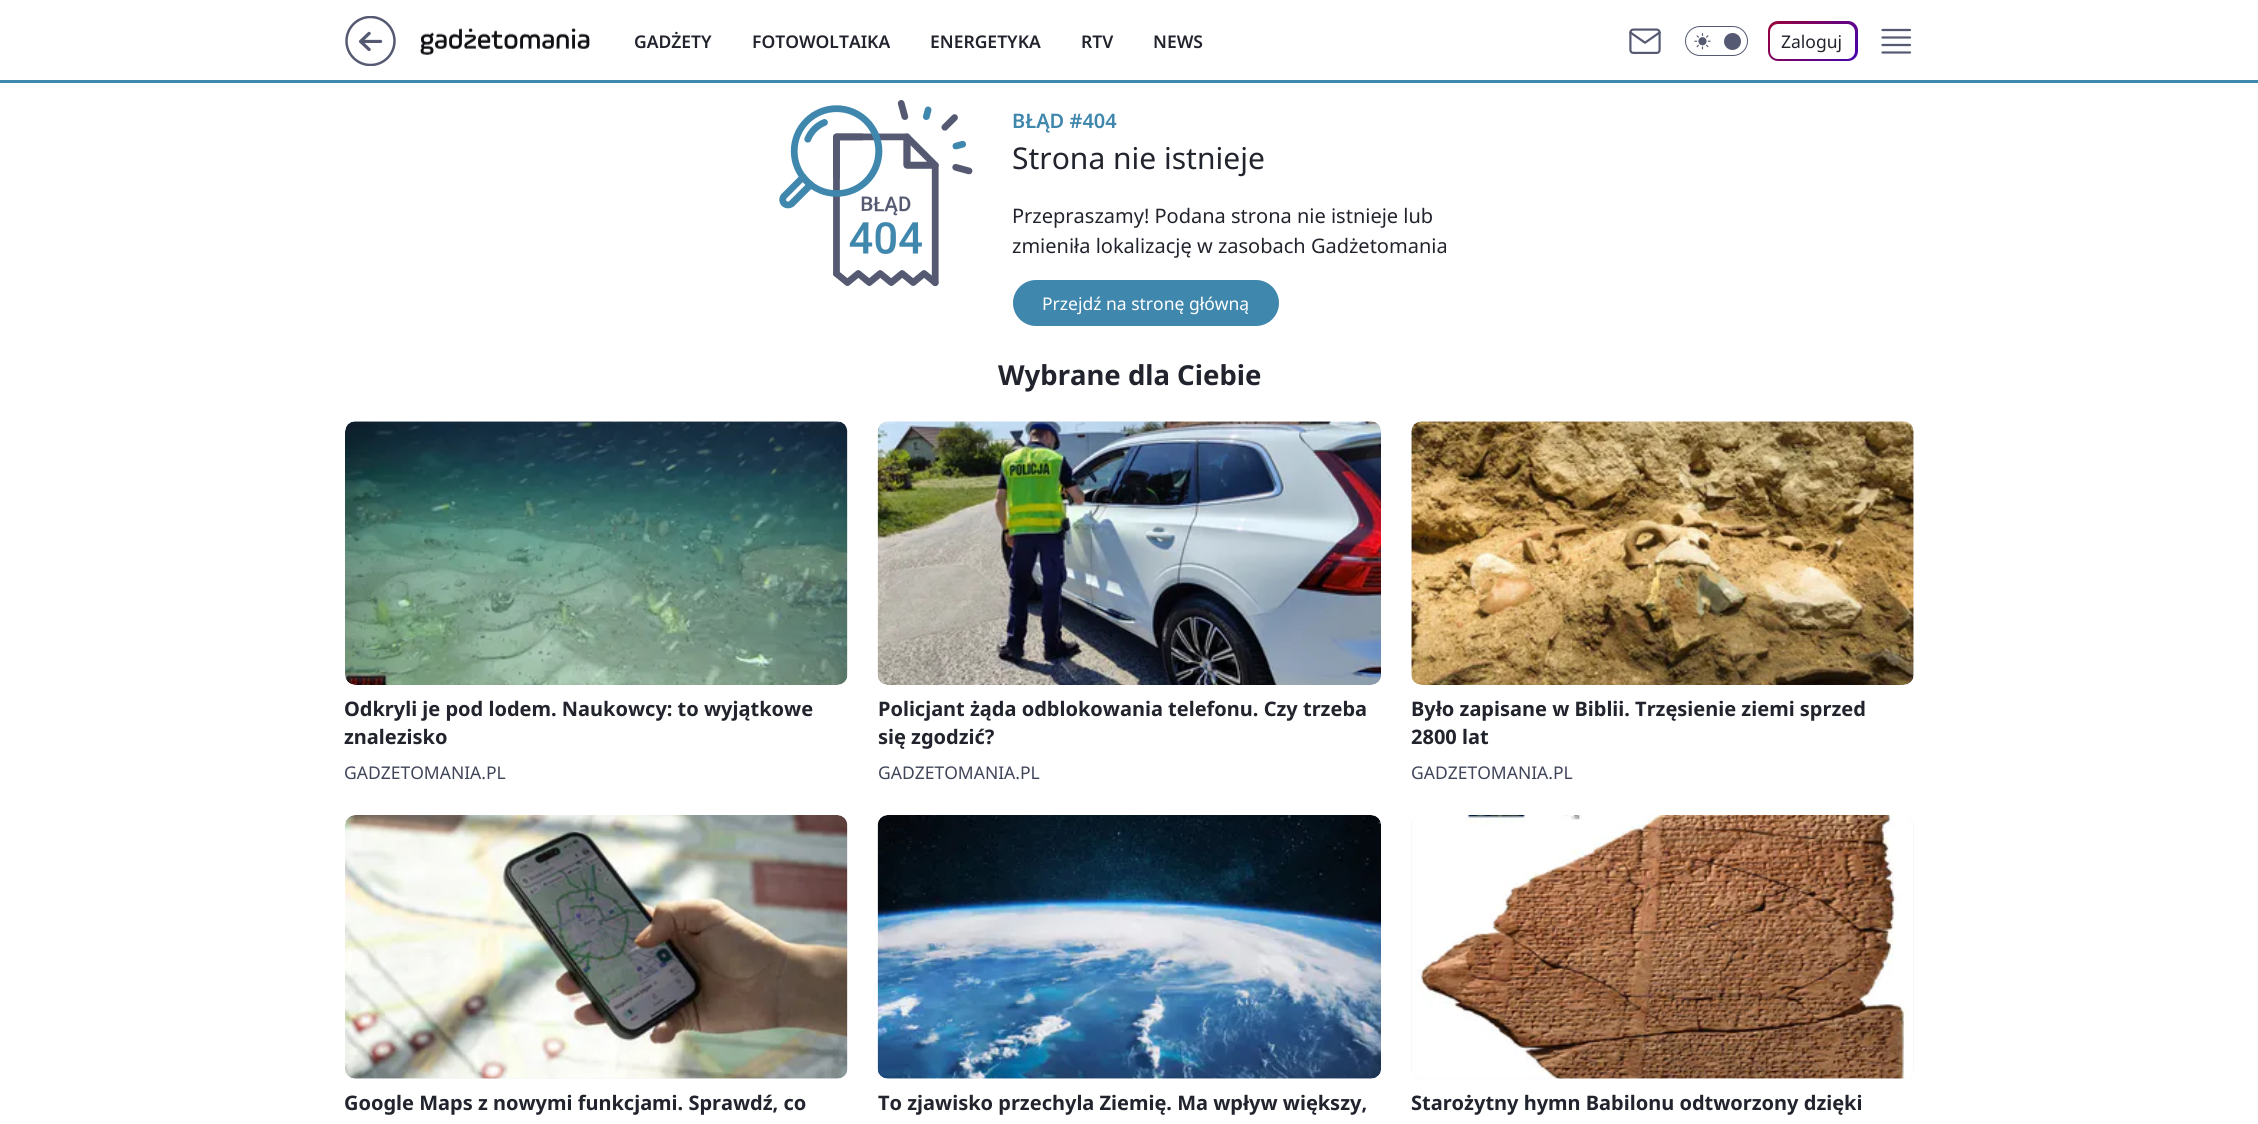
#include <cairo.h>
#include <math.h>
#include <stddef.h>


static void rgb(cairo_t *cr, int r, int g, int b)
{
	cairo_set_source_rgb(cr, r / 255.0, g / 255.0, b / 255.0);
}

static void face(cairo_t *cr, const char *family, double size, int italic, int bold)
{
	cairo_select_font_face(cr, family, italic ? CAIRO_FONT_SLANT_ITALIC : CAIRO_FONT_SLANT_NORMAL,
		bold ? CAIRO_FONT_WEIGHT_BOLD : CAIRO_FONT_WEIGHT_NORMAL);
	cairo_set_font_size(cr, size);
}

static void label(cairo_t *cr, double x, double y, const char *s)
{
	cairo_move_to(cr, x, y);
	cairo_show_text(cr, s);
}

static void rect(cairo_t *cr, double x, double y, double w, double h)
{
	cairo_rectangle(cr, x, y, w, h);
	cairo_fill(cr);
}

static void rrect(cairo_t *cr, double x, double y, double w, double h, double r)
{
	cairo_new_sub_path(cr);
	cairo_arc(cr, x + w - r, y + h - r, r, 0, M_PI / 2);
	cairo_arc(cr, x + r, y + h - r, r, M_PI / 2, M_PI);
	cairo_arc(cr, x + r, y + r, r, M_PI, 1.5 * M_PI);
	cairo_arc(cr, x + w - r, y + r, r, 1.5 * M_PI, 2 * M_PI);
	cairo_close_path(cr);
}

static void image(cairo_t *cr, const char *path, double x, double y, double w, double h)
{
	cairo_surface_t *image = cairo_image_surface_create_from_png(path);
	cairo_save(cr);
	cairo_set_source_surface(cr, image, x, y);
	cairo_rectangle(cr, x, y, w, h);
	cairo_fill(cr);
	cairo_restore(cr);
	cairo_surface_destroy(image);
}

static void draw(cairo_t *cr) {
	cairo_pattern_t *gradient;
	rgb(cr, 255, 255, 255);
	cairo_paint(cr);
	image(cr, "image0.png", 345, 16, 51, 50);
	image(cr, "image1.png", 420, 27, 170, 28);
	face(cr, "Noto Sans SemiBold", 17.5, 0, 0);
	rgb(cr, 34, 36, 45);
	label(cr, 634, 48, "GADŻETY");
	label(cr, 752, 48, "FOTOWOLTAIKA");
	label(cr, 930, 48, "ENERGETYKA");
	label(cr, 1081, 48, "RTV");
	label(cr, 1153, 48, "NEWS");
	image(cr, "image2.png", 1629, 28, 32, 26);
	rrect(cr, 1685.5, 26.5, 62, 29, 14.5);
	rgb(cr, 85, 90, 114);
	cairo_set_line_width(cr, 1);
	cairo_stroke(cr);
	image(cr, "image3.png", 1694, 33, 17, 17);
	cairo_arc(cr, 1732.5, 41.5, 8.5, 0, 2 * M_PI);
	cairo_fill(cr);
	gradient = cairo_pattern_create_linear(1780, 9, 1845, 74);
	cairo_pattern_add_color_stop_rgba(gradient, 0, 0.608, 0.008, 0.22, 1);
	cairo_pattern_add_color_stop_rgba(gradient, 1, 0.267, 0.016, 0.682, 1);
	cairo_set_source(cr, gradient);
	cairo_pattern_destroy(gradient);
	rrect(cr, 1768, 21, 90, 40, 10);
	cairo_fill(cr);
	rgb(cr, 255, 255, 255);
	rrect(cr, 1770, 24, 85, 35, 8);
	cairo_fill(cr);
	face(cr, "Noto Sans", 17.5, 0, 0);
	rgb(cr, 34, 36, 45);
	label(cr, 1781, 48, "Zaloguj");
	cairo_new_path(cr);
	cairo_move_to(cr, 1882.5, 45);
	cairo_line_to(cr, 1910, 45);
	cairo_move_to(cr, 1882.5, 37.5);
	cairo_line_to(cr, 1910, 37.5);
	cairo_move_to(cr, 1882.5, 30);
	cairo_line_to(cr, 1910, 30);
	cairo_move_to(cr, 1882.5, 52.5);
	cairo_line_to(cr, 1910, 52.5);
	rgb(cr, 85, 90, 114);
	cairo_set_line_width(cr, 2.2);
	cairo_set_line_cap(cr, CAIRO_LINE_CAP_ROUND);
	cairo_set_line_join(cr, CAIRO_LINE_JOIN_ROUND);
	cairo_stroke(cr);
	rgb(cr, 64, 135, 173);
	rect(cr, 0, 80, 2258, 3);
	image(cr, "image4.png", 779, 100, 194, 187);
	face(cr, "Noto Sans SemiBold", 20, 0, 0);
	label(cr, 1012, 128, "BŁĄD #404");
	face(cr, "Noto Sans", 30, 0, 0);
	rgb(cr, 34, 36, 45);
	label(cr, 1012, 169, "Strona nie istnieje");
	face(cr, "Noto Sans", 20, 0, 0);
	label(cr, 1012, 223, "Przepraszamy! Podana strona nie istnieje lub");
	label(cr, 1012, 253, "zmieniła lokalizację w zasobach Gadżetomania");
	rgb(cr, 64, 135, 173);
	rrect(cr, 1013, 280, 266, 46, 23);
	cairo_fill(cr);
	face(cr, "Noto Sans", 17.5, 0, 0);
	rgb(cr, 255, 255, 255);
	label(cr, 1042, 310, "Przejdź na stronę główną");
	face(cr, "Noto Sans", 27.5, 0, 1);
	rgb(cr, 34, 36, 45);
	label(cr, 998, 385, "Wybrane dla Ciebie");
	rgb(cr, 247, 248, 250);
	rrect(cr, 345, 421, 503, 264, 10);
	cairo_fill(cr);
	image(cr, "image5.png", 345, 421, 503, 264);
	face(cr, "Noto Sans", 20, 0, 1);
	rgb(cr, 34, 36, 45);
	label(cr, 344, 716, "Odkryli je pod lodem. Naukowcy: to wyjątkowe");
	label(cr, 344, 744, "znalezisko");
	face(cr, "Noto Sans", 17.5, 0, 0);
	rgb(cr, 65, 69, 90);
	label(cr, 344, 779, "GADZETOMANIA.PL");
	rgb(cr, 247, 248, 250);
	rrect(cr, 878, 421, 503, 264, 10);
	cairo_fill(cr);
	image(cr, "image6.png", 877, 421, 504, 264);
	face(cr, "Noto Sans", 20, 0, 1);
	rgb(cr, 34, 36, 45);
	label(cr, 878, 716, "Policjant żąda odblokowania telefonu. Czy trzeba");
	label(cr, 878, 744, "się zgodzić?");
	face(cr, "Noto Sans", 17.5, 0, 0);
	rgb(cr, 65, 69, 90);
	label(cr, 878, 779, "GADZETOMANIA.PL");
	rgb(cr, 247, 248, 250);
	rrect(cr, 1411, 421, 503, 264, 10);
	cairo_fill(cr);
	image(cr, "image7.png", 1411, 421, 503, 264);
	face(cr, "Noto Sans", 20, 0, 1);
	rgb(cr, 34, 36, 45);
	label(cr, 1411, 716, "Było zapisane w Biblii. Trzęsienie ziemi sprzed");
	label(cr, 1411, 744, "2800 lat");
	face(cr, "Noto Sans", 17.5, 0, 0);
	rgb(cr, 65, 69, 90);
	label(cr, 1411, 779, "GADZETOMANIA.PL");
	rgb(cr, 247, 248, 250);
	rrect(cr, 345, 815, 503, 264, 10);
	cairo_fill(cr);
	image(cr, "image8.png", 345, 815, 503, 264);
	face(cr, "Noto Sans", 20, 0, 1);
	rgb(cr, 34, 36, 45);
	label(cr, 344, 1110, "Google Maps z nowymi funkcjami. Sprawdź, co");
	rgb(cr, 247, 248, 250);
	rrect(cr, 878, 815, 503, 264, 10);
	cairo_fill(cr);
	image(cr, "image9.png", 877, 815, 504, 264);
	rgb(cr, 34, 36, 45);
	label(cr, 878, 1110, "To zjawisko przechyla Ziemię. Ma wpływ większy,");
	rgb(cr, 247, 248, 250);
	rrect(cr, 1411, 815, 503, 264, 10);
	cairo_fill(cr);
	image(cr, "image10.png", 1412, 815, 501, 264);
	rgb(cr, 34, 36, 45);
	label(cr, 1411, 1110, "Starożytny hymn Babilonu odtworzony dzięki");
}

int main(void) {
	cairo_surface_t *surface = cairo_image_surface_create(CAIRO_FORMAT_RGB24, 2258, 1124);
	cairo_t *cr = cairo_create(surface);
	cairo_font_options_t *options = cairo_font_options_create();
	cairo_font_options_set_hint_metrics(options, CAIRO_HINT_METRICS_OFF);
	cairo_font_options_set_hint_style(options, CAIRO_HINT_STYLE_NONE);
	cairo_set_font_options(cr, options);
	cairo_set_miter_limit(cr, 4);
	draw(cr);
	cairo_surface_write_to_png(surface, "render.png");
	cairo_font_options_destroy(options);
	cairo_destroy(cr);
	cairo_surface_destroy(surface);
	return 0;
}
